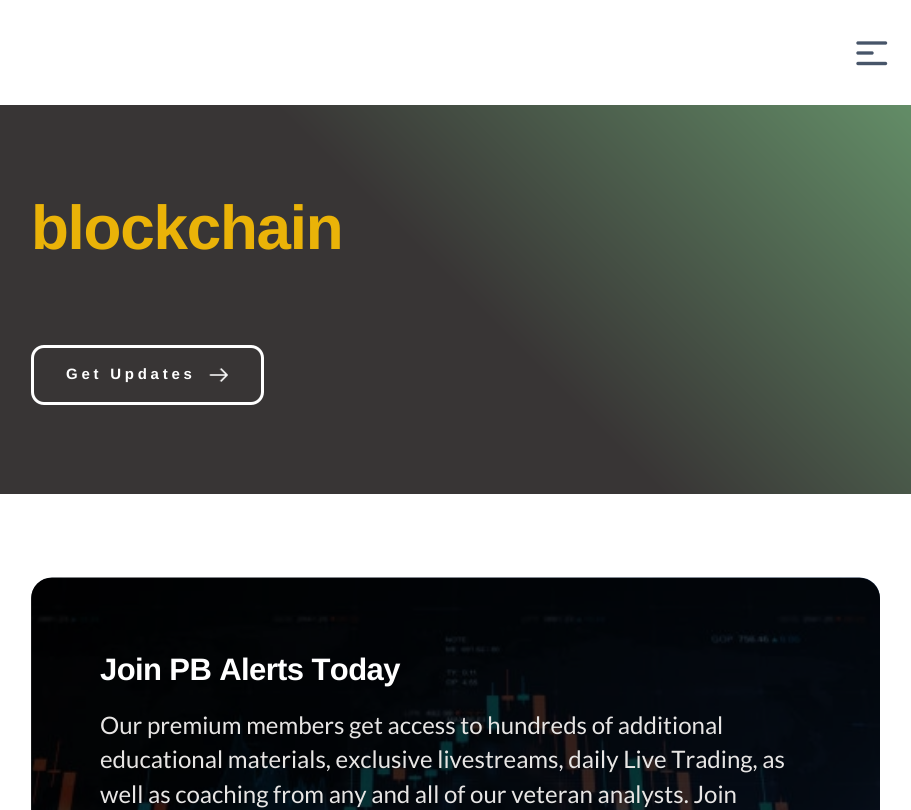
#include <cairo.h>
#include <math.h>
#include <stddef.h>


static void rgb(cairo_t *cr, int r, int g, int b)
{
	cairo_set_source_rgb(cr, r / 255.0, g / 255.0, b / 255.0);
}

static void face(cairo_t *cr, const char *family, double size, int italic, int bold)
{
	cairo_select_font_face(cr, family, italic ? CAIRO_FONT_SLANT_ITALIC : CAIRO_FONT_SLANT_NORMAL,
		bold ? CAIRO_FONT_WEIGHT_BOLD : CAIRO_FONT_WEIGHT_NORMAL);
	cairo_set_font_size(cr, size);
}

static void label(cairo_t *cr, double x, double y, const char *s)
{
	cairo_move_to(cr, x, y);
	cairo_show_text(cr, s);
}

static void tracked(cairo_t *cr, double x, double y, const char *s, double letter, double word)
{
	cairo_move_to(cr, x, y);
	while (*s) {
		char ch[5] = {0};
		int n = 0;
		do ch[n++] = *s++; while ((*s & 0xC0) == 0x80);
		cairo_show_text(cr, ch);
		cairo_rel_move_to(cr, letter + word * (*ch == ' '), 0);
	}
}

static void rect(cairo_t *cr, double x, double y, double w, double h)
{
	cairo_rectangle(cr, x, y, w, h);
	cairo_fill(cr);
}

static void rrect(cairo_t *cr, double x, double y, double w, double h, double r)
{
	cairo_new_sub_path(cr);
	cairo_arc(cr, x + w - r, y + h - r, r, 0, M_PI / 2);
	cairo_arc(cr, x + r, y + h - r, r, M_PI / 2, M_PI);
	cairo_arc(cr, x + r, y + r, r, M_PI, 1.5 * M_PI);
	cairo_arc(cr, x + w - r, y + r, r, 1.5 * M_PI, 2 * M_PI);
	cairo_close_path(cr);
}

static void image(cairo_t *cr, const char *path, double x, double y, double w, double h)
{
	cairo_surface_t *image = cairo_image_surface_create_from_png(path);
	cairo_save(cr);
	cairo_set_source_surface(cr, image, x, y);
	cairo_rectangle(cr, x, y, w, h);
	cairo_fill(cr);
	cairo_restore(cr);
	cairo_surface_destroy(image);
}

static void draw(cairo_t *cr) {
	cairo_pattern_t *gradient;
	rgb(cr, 255, 255, 255);
	cairo_paint(cr);
	cairo_new_path(cr);
	cairo_move_to(cr, 858, 43);
	cairo_line_to(cr, 885.5, 43);
	cairo_move_to(cr, 858, 53);
	cairo_line_to(cr, 872, 53);
	cairo_move_to(cr, 858, 63.5);
	cairo_line_to(cr, 885.5, 63.5);
	rgb(cr, 71, 85, 105);
	cairo_set_line_width(cr, 3.4);
	cairo_set_line_cap(cr, CAIRO_LINE_CAP_ROUND);
	cairo_set_line_join(cr, CAIRO_LINE_JOIN_ROUND);
	cairo_stroke(cr);
	gradient = cairo_pattern_create_linear(131, 624, 781, -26);
	cairo_pattern_add_color_stop_rgba(gradient, 0.51, 0.22, 0.208, 0.208, 1);
	cairo_pattern_add_color_stop_rgba(gradient, 1, 0.388, 0.553, 0.404, 1);
	cairo_set_source(cr, gradient);
	cairo_pattern_destroy(gradient);
	rect(cr, 0, 105, 911, 389);
	face(cr, "Liberation Sans", 62, 0, 1);
	rgb(cr, 234, 179, 8);
	tracked(cr, 31, 249, "blockchain", -1.25, 0);
	rrect(cr, 32.5, 346.5, 230, 57, 11.5);
	rgb(cr, 255, 255, 255);
	cairo_set_line_width(cr, 3);
	cairo_set_line_cap(cr, CAIRO_LINE_CAP_BUTT);
	cairo_set_line_join(cr, CAIRO_LINE_JOIN_MITER);
	cairo_stroke(cr);
	face(cr, "Liberation Sans", 15, 0, 1);
	tracked(cr, 66, 379, "Get Updates", 3.75, 0);
	image(cr, "image0.png", 209, 368, 19, 14);
	image(cr, "image1.png", 31, 577, 849, 233);
	cairo_set_source_rgba(cr, 0, 0, 0, 0.8);
	rrect(cr, 31, 578, 849, 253, 21);
	cairo_fill(cr);
	face(cr, "Liberation Sans", 31, 0, 1);
	rgb(cr, 255, 255, 255);
	tracked(cr, 100, 680, "Join PB Alerts Today", -0.6, 0);
	face(cr, "Lato", 24.05, 0, 0);
	rgb(cr, 231, 229, 228);
	label(cr, 100, 734, "Our premium members get access to hundreds of additional");
	label(cr, 100, 768, "educational materials, exclusive livestreams, daily Live Trading, as");
	label(cr, 100, 803, "well as coaching from any and all of our veteran analysts. Join");
}

int main(void) {
	cairo_surface_t *surface = cairo_image_surface_create(CAIRO_FORMAT_RGB24, 911, 810);
	cairo_t *cr = cairo_create(surface);
	cairo_font_options_t *options = cairo_font_options_create();
	cairo_font_options_set_hint_metrics(options, CAIRO_HINT_METRICS_OFF);
	cairo_font_options_set_hint_style(options, CAIRO_HINT_STYLE_NONE);
	cairo_set_font_options(cr, options);
	cairo_set_miter_limit(cr, 4);
	draw(cr);
	cairo_surface_write_to_png(surface, "render.png");
	cairo_font_options_destroy(options);
	cairo_destroy(cr);
	cairo_surface_destroy(surface);
	return 0;
}
